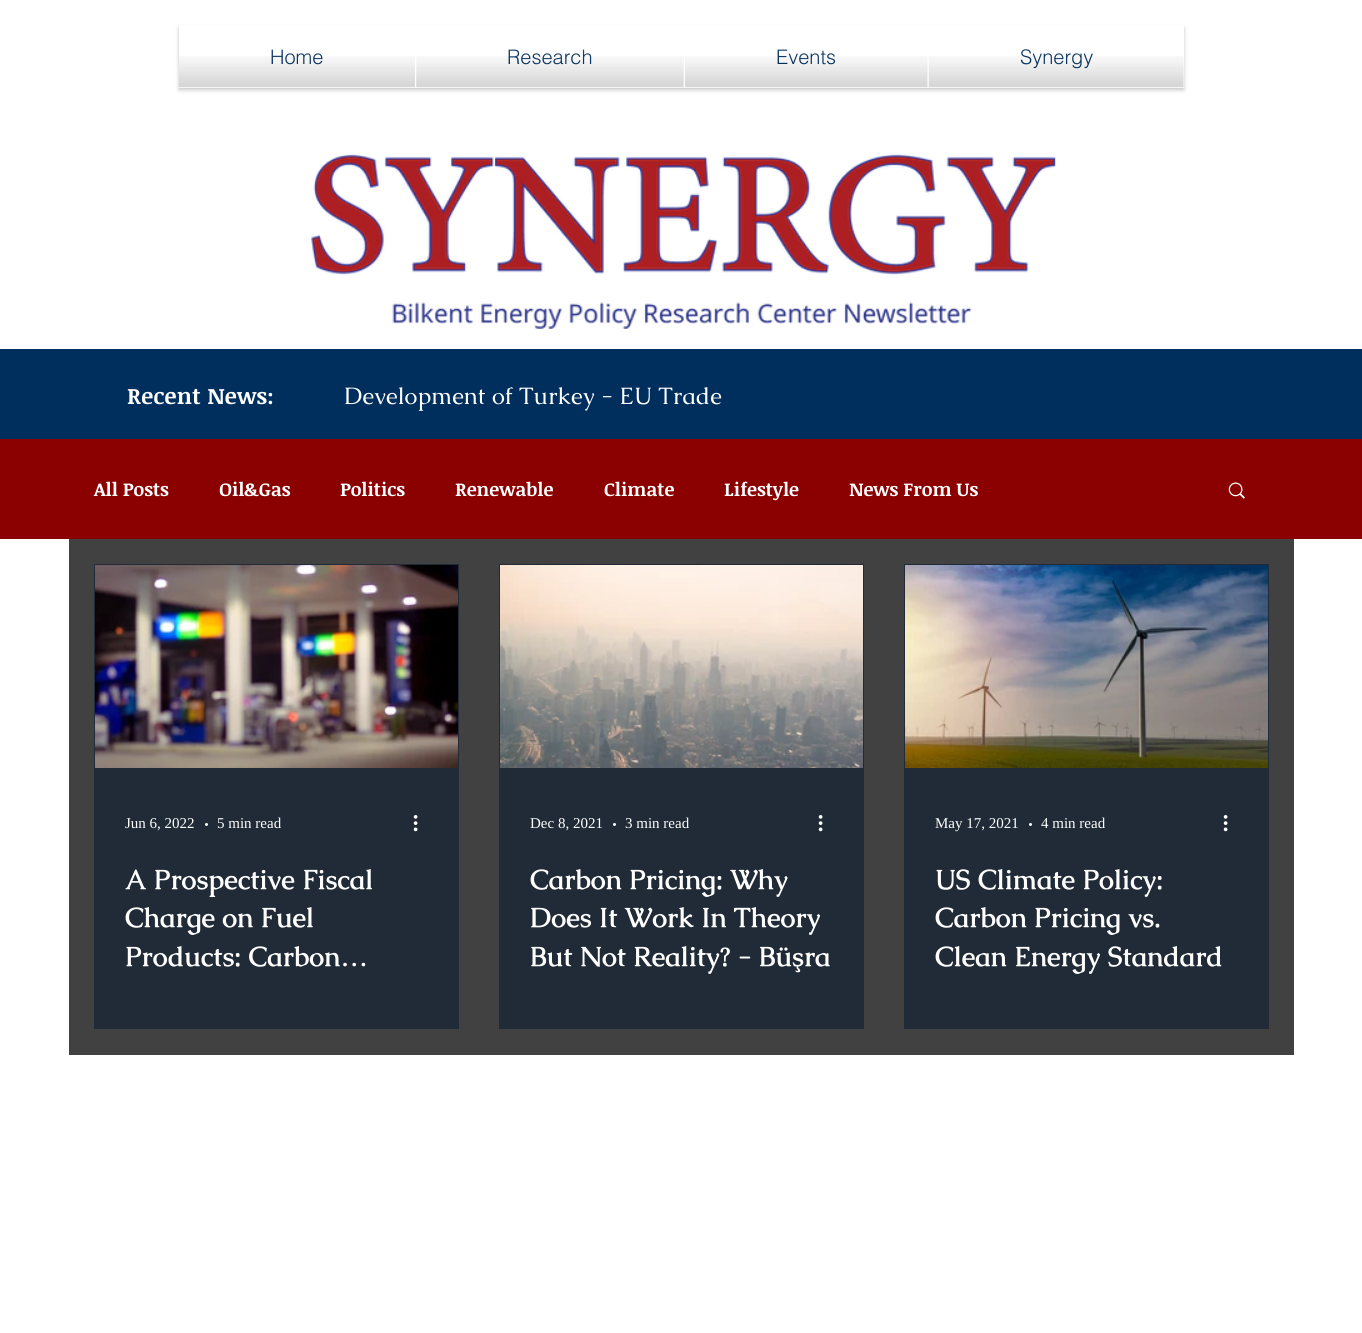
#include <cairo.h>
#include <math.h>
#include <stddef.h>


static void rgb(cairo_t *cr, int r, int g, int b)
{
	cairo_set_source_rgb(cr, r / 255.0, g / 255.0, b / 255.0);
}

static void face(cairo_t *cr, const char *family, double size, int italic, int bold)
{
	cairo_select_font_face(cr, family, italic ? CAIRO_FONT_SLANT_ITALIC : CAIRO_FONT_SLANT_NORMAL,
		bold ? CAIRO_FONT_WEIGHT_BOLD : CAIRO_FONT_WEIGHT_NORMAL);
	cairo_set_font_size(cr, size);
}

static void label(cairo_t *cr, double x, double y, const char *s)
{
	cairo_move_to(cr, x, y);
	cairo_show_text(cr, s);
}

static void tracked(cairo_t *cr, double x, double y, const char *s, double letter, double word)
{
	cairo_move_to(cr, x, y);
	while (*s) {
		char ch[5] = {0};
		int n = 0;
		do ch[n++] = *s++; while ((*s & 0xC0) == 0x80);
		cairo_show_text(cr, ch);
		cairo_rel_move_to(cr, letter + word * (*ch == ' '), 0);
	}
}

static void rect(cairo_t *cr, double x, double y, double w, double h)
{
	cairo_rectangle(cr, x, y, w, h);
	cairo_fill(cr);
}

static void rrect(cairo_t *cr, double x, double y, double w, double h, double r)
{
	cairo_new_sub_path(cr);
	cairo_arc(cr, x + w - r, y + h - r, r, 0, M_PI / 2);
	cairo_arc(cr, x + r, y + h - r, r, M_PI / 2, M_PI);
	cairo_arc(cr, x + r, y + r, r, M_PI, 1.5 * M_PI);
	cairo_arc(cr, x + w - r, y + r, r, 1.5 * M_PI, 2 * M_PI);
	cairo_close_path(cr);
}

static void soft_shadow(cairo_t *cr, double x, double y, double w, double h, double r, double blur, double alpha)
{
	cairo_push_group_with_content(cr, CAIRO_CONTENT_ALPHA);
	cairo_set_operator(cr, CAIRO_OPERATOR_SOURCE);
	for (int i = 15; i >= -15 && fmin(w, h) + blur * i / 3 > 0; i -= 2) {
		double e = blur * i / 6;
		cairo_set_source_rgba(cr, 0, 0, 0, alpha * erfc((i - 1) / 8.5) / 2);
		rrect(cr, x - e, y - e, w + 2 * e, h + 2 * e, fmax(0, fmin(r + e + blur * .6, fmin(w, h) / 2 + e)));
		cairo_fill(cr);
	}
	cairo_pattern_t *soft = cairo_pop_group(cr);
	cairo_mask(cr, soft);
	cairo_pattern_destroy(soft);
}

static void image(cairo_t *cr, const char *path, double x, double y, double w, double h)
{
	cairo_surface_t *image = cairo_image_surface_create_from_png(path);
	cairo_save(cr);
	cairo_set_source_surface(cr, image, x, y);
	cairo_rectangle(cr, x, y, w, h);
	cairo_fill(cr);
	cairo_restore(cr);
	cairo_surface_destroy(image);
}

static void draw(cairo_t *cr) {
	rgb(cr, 255, 255, 255);
	cairo_paint(cr);
	rgb(cr, 162, 158, 158);
	soft_shadow(cr, 179, 28, 1005, 62, 0, 2, 0.6);
	rgb(cr, 255, 255, 255);
	rect(cr, 179, 25, 1005, 63);
	face(cr, "helvetica Light", 20, 0, 0);
	rgb(cr, 0, 46, 93);
	label(cr, 270, 64, "Home");
	image(cr, "image0.png", 271, 49, 52, 15);
	image(cr, "image1.png", 179, 56, 236, 32);
	label(cr, 507, 64, "Research");
	image(cr, "image2.png", 508, 49, 84, 15);
	image(cr, "image3.png", 416, 56, 268, 32);
	label(cr, 776, 64, "Events");
	image(cr, "image4.png", 778, 49, 57, 15);
	image(cr, "image5.png", 685, 56, 243, 32);
	label(cr, 1020, 64, "Synergy");
	image(cr, "image6.png", 1020, 49, 72, 17);
	image(cr, "image7.png", 928, 56, 256, 32);
	image(cr, "image8.png", 311, 154, 745, 175);
	rect(cr, 0, 349, 1362, 90);
	face(cr, "Noticia Text", 22.5, 0, 1);
	rgb(cr, 255, 255, 255);
	tracked(cr, 127, 404, "Recent News:", 0.25, 0);
	face(cr, "Caudex", 23.75, 0, 0);
	label(cr, 344, 404, "Development of Turkey - EU Trade");
	rgb(cr, 139, 0, 0);
	rect(cr, 0, 439, 1362, 100);
	rgb(cr, 65, 65, 65);
	rect(cr, 69, 539, 1225, 516);
	face(cr, "Noticia Text", 18.75, 0, 1);
	rgb(cr, 255, 255, 255);
	label(cr, 94, 496, "All Posts");
	label(cr, 219, 496, "Oil&Gas");
	label(cr, 340, 496, "Politics");
	label(cr, 455, 496, "Renewable");
	label(cr, 604, 496, "Climate");
	label(cr, 724, 496, "Lifestyle");
	label(cr, 849, 496, "News From Us");
	image(cr, "image9.png", 1228, 482, 17, 17);
	cairo_rectangle(cr, 94.5, 564.5, 364, 464);
	rgb(cr, 32, 43, 55);
	cairo_set_line_width(cr, 1);
	cairo_stroke(cr);
	image(cr, "image10.png", 95, 565, 363, 203);
	rect(cr, 95, 768, 363, 260);
	face(cr, "Liberation Serif", 15, 0, 0);
	rgb(cr, 255, 255, 255);
	label(cr, 125, 828, "Jun 6, 2022");
	cairo_new_path(cr);
	cairo_arc(cr, 206.5, 824.5, 1.5, 0, 2 * M_PI);
	cairo_fill(cr);
	label(cr, 217, 828, "5 min read");
	image(cr, "image11.png", 413, 815, 5, 17);
	face(cr, "Caudex", 27.5, 0, 1);
	label(cr, 125, 889, "A Prospective Fiscal");
	label(cr, 125, 927, "Charge on Fuel");
	label(cr, 125, 966, "Products: Carbon…");
	cairo_rectangle(cr, 499.5, 564.5, 364, 464);
	rgb(cr, 32, 43, 55);
	cairo_stroke(cr);
	image(cr, "image12.png", 500, 565, 363, 203);
	rect(cr, 500, 768, 363, 260);
	face(cr, "Liberation Serif", 15, 0, 0);
	rgb(cr, 255, 255, 255);
	label(cr, 530, 828, "Dec 8, 2021");
	cairo_new_path(cr);
	cairo_arc(cr, 614.5, 824.5, 1.5, 0, 2 * M_PI);
	cairo_fill(cr);
	label(cr, 625, 828, "3 min read");
	image(cr, "image11.png", 818, 815, 5, 17);
	face(cr, "Caudex", 27.5, 0, 1);
	label(cr, 530, 889, "Carbon Pricing: Why");
	label(cr, 530, 927, "Does It Work In Theory");
	label(cr, 530, 966, "But Not Reality? - Büşra");
	cairo_rectangle(cr, 904.5, 564.5, 364, 464);
	rgb(cr, 32, 43, 55);
	cairo_stroke(cr);
	image(cr, "image13.png", 905, 565, 363, 203);
	rect(cr, 905, 768, 363, 260);
	face(cr, "Liberation Serif", 15, 0, 0);
	rgb(cr, 255, 255, 255);
	label(cr, 935, 828, "May 17, 2021");
	cairo_new_path(cr);
	cairo_arc(cr, 1030.5, 824.5, 1.5, 0, 2 * M_PI);
	cairo_fill(cr);
	label(cr, 1041, 828, "4 min read");
	image(cr, "image11.png", 1223, 815, 5, 17);
	face(cr, "Caudex", 27.5, 0, 1);
	label(cr, 935, 889, "US Climate Policy:");
	label(cr, 935, 927, "Carbon Pricing vs.");
	label(cr, 935, 966, "Clean Energy Standard");
}

int main(void) {
	cairo_surface_t *surface = cairo_image_surface_create(CAIRO_FORMAT_RGB24, 1362, 1333);
	cairo_t *cr = cairo_create(surface);
	cairo_font_options_t *options = cairo_font_options_create();
	cairo_font_options_set_hint_metrics(options, CAIRO_HINT_METRICS_OFF);
	cairo_font_options_set_hint_style(options, CAIRO_HINT_STYLE_NONE);
	cairo_set_font_options(cr, options);
	cairo_set_miter_limit(cr, 4);
	draw(cr);
	cairo_surface_write_to_png(surface, "render.png");
	cairo_font_options_destroy(options);
	cairo_destroy(cr);
	cairo_surface_destroy(surface);
	return 0;
}
